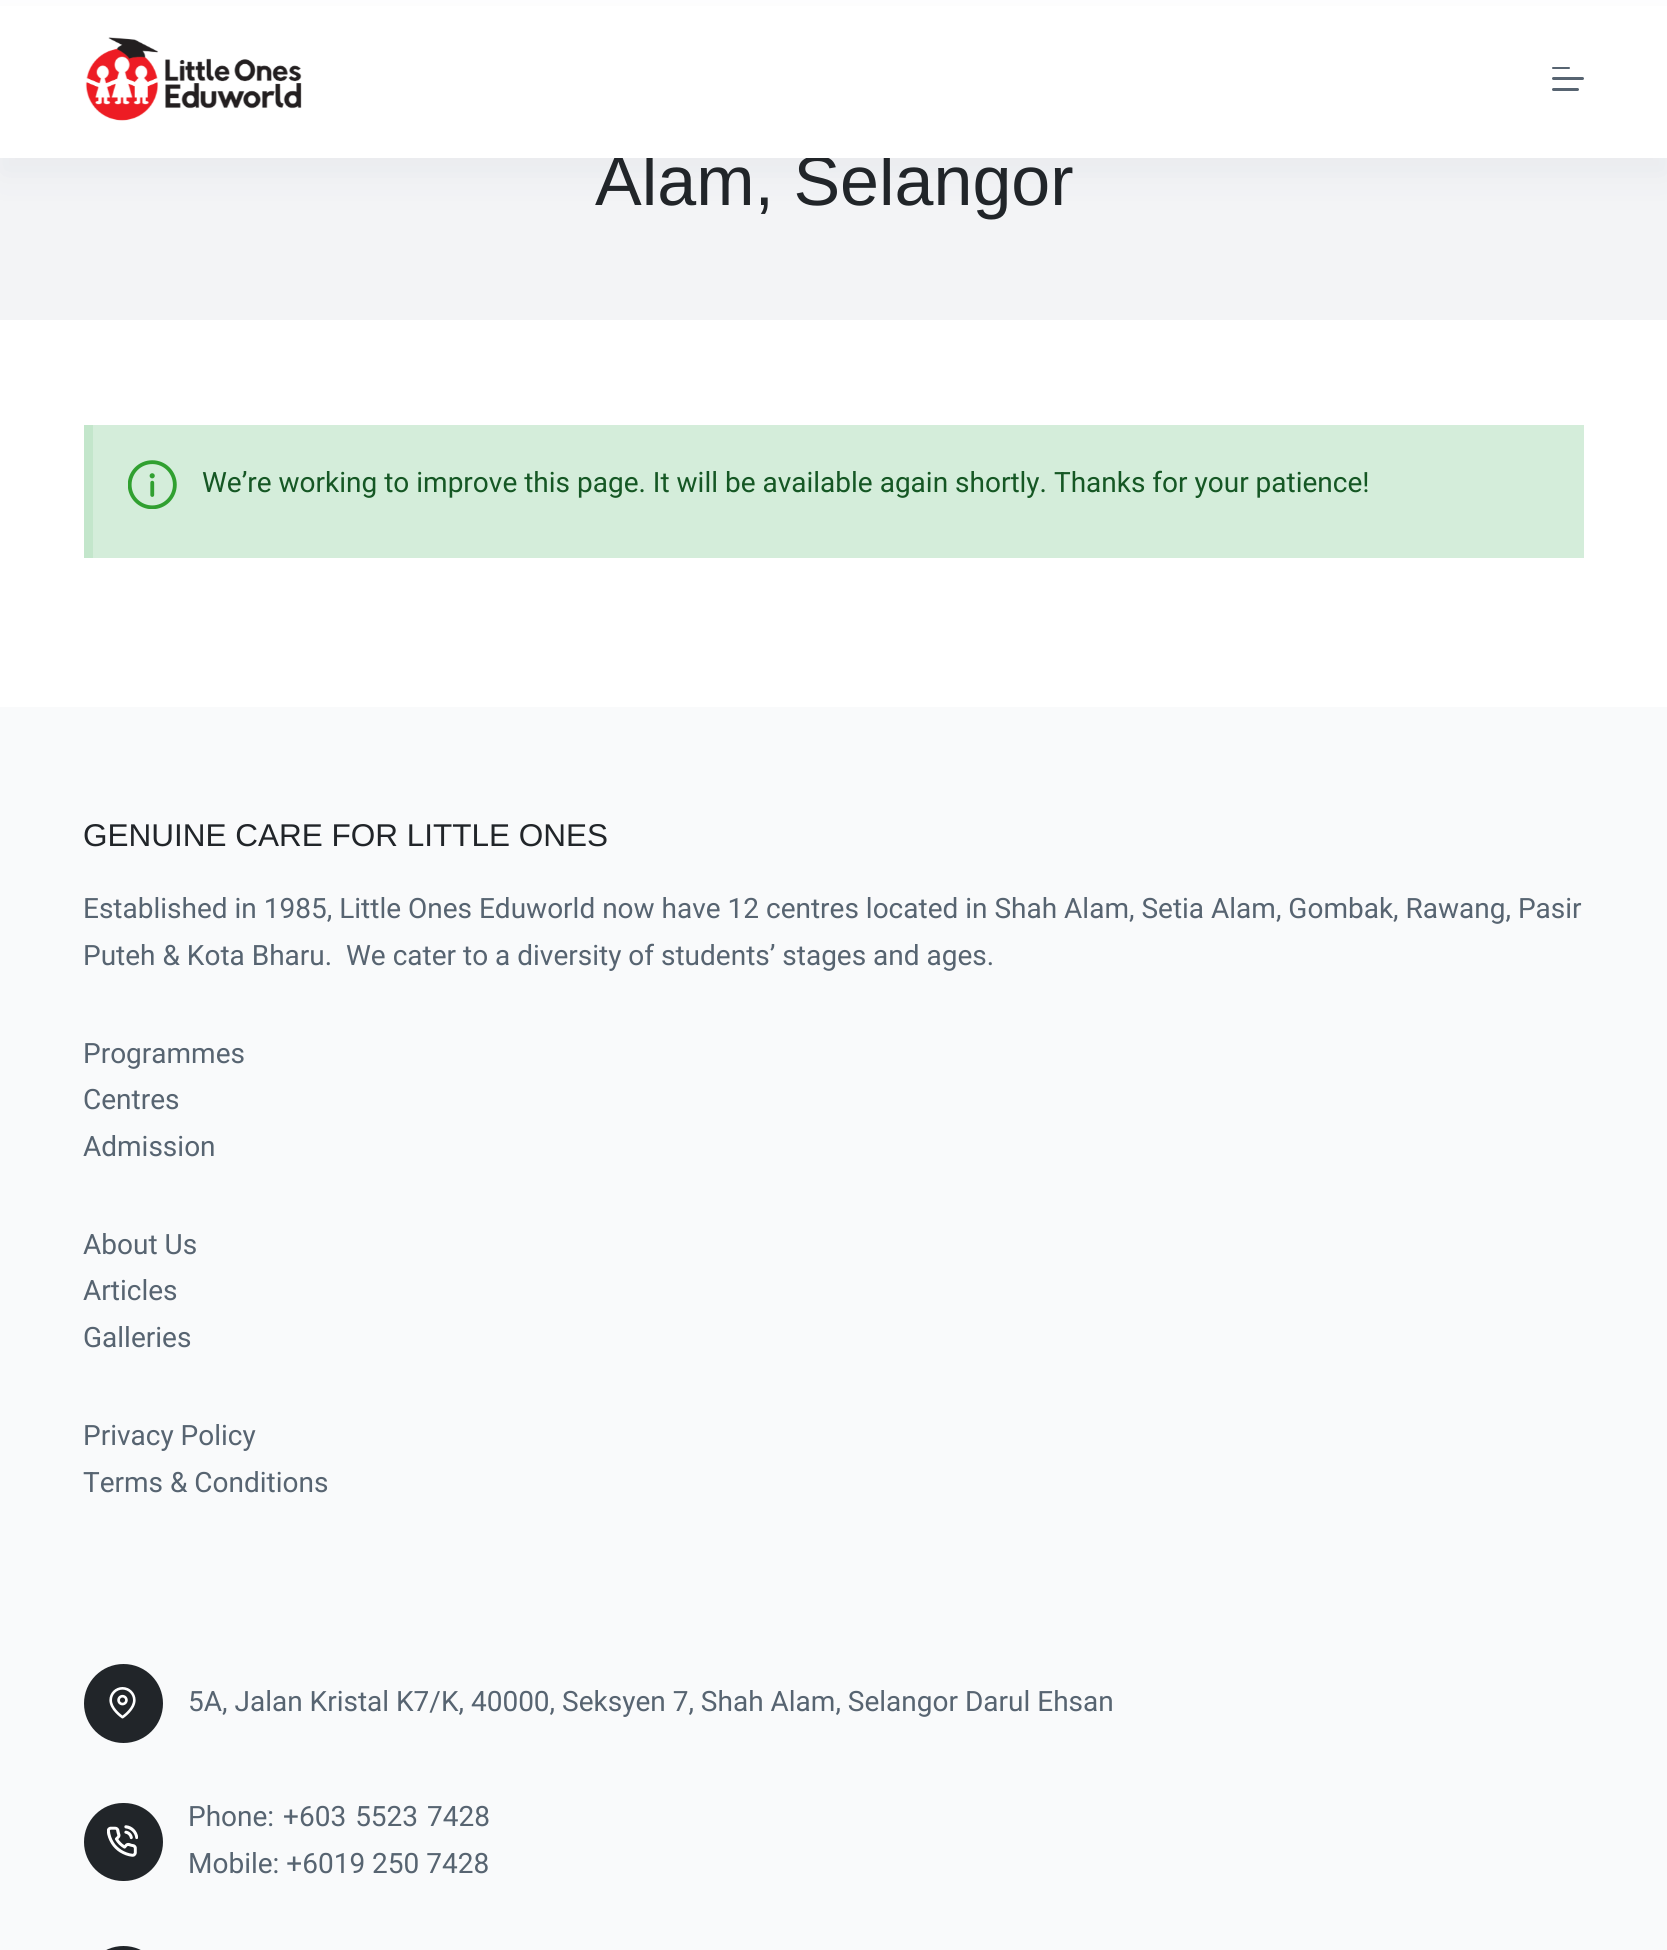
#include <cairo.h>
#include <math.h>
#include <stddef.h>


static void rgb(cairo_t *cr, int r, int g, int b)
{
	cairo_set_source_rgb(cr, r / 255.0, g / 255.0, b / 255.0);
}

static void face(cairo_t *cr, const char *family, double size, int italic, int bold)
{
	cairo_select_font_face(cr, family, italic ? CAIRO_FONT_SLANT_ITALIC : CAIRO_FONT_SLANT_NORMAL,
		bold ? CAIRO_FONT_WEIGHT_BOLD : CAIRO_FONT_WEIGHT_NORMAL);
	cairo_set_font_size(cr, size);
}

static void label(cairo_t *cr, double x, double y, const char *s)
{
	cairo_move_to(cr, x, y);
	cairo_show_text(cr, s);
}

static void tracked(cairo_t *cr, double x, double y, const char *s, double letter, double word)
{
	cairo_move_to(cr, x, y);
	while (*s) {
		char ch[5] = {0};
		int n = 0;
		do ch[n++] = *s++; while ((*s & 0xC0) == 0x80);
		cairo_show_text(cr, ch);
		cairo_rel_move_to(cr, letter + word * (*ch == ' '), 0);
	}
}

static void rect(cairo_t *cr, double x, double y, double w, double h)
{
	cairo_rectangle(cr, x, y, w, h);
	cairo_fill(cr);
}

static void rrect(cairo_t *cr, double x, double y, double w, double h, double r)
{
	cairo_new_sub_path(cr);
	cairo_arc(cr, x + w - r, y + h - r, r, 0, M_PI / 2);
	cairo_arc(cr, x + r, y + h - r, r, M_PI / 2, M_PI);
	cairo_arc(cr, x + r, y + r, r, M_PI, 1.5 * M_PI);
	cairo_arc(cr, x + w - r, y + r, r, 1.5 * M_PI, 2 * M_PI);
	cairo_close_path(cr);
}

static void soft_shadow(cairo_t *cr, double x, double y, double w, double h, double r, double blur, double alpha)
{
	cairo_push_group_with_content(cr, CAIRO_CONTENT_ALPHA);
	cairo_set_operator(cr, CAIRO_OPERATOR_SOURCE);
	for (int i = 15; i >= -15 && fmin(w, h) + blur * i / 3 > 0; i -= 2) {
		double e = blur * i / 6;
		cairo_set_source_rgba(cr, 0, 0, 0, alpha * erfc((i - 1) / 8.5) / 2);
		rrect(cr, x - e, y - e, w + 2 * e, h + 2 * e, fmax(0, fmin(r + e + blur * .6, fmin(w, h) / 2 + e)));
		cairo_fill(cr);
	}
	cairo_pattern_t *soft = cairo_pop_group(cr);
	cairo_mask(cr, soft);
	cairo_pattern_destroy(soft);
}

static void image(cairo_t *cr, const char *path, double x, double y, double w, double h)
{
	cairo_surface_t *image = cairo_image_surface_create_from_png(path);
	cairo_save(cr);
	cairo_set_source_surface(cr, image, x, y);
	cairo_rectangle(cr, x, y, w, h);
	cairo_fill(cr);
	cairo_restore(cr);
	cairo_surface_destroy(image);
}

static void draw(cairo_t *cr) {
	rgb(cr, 255, 255, 255);
	cairo_paint(cr);
	rgb(cr, 243, 244, 246);
	rect(cr, 0, 158, 1667, 162);
	rgb(cr, 44, 62, 80);
	soft_shadow(cr, 0, 18, 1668, 157, 0, 17.5, 0.05);
	face(cr, "Liberation Sans", 70, 0, 0);
	rgb(cr, 33, 37, 41);
	label(cr, 595, 205, "Alam, Selangor");
	rgb(cr, 255, 255, 255);
	rect(cr, 0, 6, 1667, 152);
	image(cr, "image0.png", 85, 37, 217, 84);
	rgb(cr, 87, 100, 113);
	rrect(cr, 1552, 67, 18, 2, 1);
	cairo_fill(cr);
	rrect(cr, 1552, 77, 32, 3, 1.5);
	cairo_fill(cr);
	rrect(cr, 1552, 88, 27, 3, 1.5);
	cairo_fill(cr);
	rgb(cr, 212, 237, 218);
	rect(cr, 93, 425, 1491, 133);
	rgb(cr, 195, 230, 203);
	rect(cr, 84, 425, 9, 133);
	image(cr, "image1.png", 128, 460, 49, 49);
	face(cr, "Roboto", 28, 0, 0);
	rgb(cr, 21, 87, 36);
	label(cr, 202, 492, "We’re working to improve this page. It will be available again shortly. Thanks for your patience!");
	rgb(cr, 249, 250, 251);
	rect(cr, 0, 707, 1667, 1243);
	face(cr, "Liberation Sans", 31.5, 0, 0);
	rgb(cr, 33, 37, 41);
	label(cr, 83, 846, "GENUINE CARE FOR LITTLE ONES");
	face(cr, "Roboto", 28, 0, 0);
	rgb(cr, 87, 100, 113);
	label(cr, 83, 918, "Established in 1985, Little Ones Eduworld now have 12 centres located in Shah Alam, Setia Alam, Gombak, Rawang, Pasir");
	label(cr, 83, 965, "Puteh & Kota Bharu.  We cater to a diversity of students’ stages and ages.");
	label(cr, 83, 1063, "Programmes");
	label(cr, 83, 1109, "Centres");
	label(cr, 83, 1156, "Admission");
	label(cr, 83, 1254, "About Us");
	label(cr, 83, 1300, "Articles");
	label(cr, 83, 1347, "Galleries");
	label(cr, 83, 1445, "Privacy Policy");
	label(cr, 83, 1492, "Terms & Conditions");
	rgb(cr, 33, 37, 41);
	cairo_new_path(cr);
	cairo_arc(cr, 123.5, 1703.5, 39.5, 0, 2 * M_PI);
	cairo_fill(cr);
	image(cr, "image2.png", 109, 1687, 27, 32);
	rgb(cr, 87, 100, 113);
	label(cr, 188, 1711, "5A, Jalan Kristal K7/K, 40000, Seksyen 7, Shah Alam, Selangor Darul Ehsan");
	rgb(cr, 33, 37, 41);
	rrect(cr, 84, 1803, 79, 78, 39);
	cairo_fill(cr);
	image(cr, "image3.png", 107, 1825, 31, 32);
	rgb(cr, 87, 100, 113);
	tracked(cr, 188, 1826, "Phone: +603 5523 7428", 0, 2);
	label(cr, 188, 1873, "Mobile: +6019 250 7428");
	rgb(cr, 33, 37, 41);
	rrect(cr, 84, 1946, 79, 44, 39.5);
	cairo_fill(cr);
}

int main(void) {
	cairo_surface_t *surface = cairo_image_surface_create(CAIRO_FORMAT_RGB24, 1667, 1950);
	cairo_t *cr = cairo_create(surface);
	cairo_font_options_t *options = cairo_font_options_create();
	cairo_font_options_set_hint_metrics(options, CAIRO_HINT_METRICS_OFF);
	cairo_font_options_set_hint_style(options, CAIRO_HINT_STYLE_NONE);
	cairo_set_font_options(cr, options);
	cairo_set_miter_limit(cr, 4);
	draw(cr);
	cairo_surface_write_to_png(surface, "render.png");
	cairo_font_options_destroy(options);
	cairo_destroy(cr);
	cairo_surface_destroy(surface);
	return 0;
}
